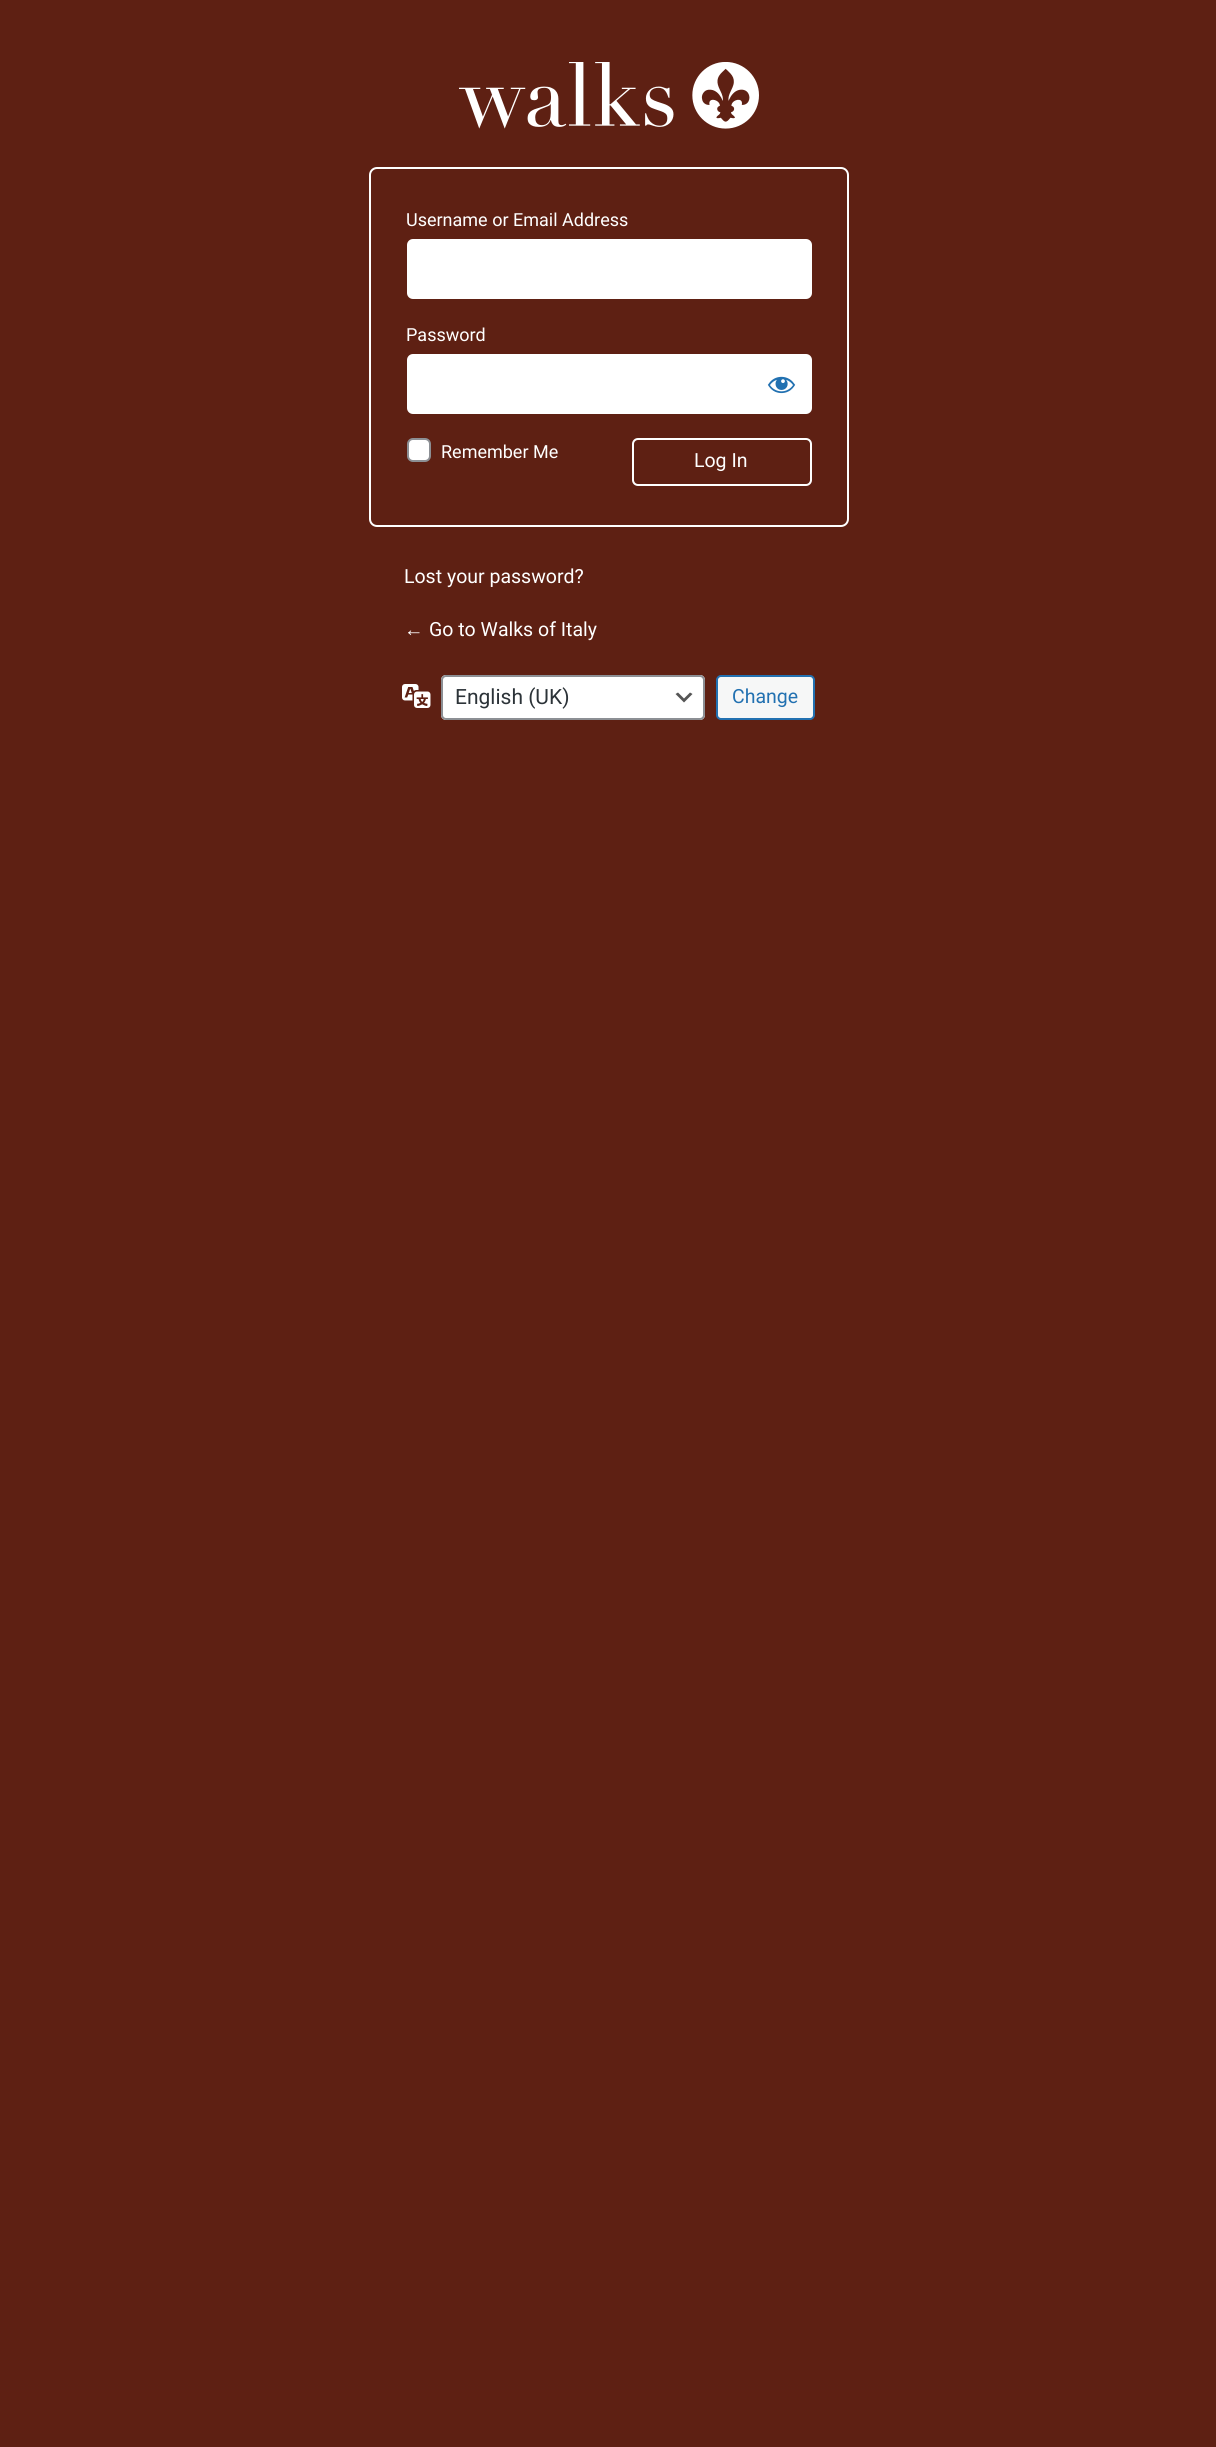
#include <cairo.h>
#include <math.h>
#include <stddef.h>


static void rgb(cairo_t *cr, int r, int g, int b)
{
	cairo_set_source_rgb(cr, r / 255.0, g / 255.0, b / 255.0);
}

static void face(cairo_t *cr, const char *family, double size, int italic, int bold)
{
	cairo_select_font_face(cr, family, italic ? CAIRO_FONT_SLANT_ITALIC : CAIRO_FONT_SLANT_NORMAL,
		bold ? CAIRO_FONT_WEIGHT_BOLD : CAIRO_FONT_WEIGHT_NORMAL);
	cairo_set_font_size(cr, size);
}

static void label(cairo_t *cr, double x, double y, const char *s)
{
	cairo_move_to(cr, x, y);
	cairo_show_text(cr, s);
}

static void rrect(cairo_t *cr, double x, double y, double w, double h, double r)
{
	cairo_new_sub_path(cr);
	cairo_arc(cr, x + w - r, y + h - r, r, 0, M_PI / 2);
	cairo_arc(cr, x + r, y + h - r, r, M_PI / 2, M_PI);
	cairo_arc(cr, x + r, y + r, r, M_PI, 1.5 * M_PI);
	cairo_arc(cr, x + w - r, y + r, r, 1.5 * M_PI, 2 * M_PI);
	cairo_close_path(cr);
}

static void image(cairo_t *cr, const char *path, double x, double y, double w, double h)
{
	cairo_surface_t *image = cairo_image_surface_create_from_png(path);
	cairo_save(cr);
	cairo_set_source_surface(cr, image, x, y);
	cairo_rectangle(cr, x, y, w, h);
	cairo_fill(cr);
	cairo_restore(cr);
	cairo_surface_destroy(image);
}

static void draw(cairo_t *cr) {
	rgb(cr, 94, 32, 19);
	cairo_paint(cr);
	image(cr, "image0.png", 459, 62, 300, 67);
	rrect(cr, 370, 168, 478, 358, 7);
	rgb(cr, 255, 255, 255);
	cairo_stroke(cr);
	face(cr, "Roboto", 18, 0, 0);
	label(cr, 406, 226, "Username or Email Address");
	rrect(cr, 408, 240, 403, 58, 5);
	cairo_fill_preserve(cr);
	cairo_stroke(cr);
	label(cr, 406, 341, "Password");
	rrect(cr, 408, 355, 403, 58, 5);
	cairo_fill_preserve(cr);
	cairo_stroke(cr);
	image(cr, "image1.png", 767, 376, 29, 18);
	rrect(cr, 408, 439, 22, 22, 5);
	cairo_fill_preserve(cr);
	rgb(cr, 140, 143, 148);
	cairo_stroke(cr);
	rgb(cr, 255, 255, 255);
	label(cr, 441, 458, "Remember Me");
	rrect(cr, 633, 439, 178, 46, 5);
	cairo_stroke(cr);
	face(cr, "Roboto", 19.5, 0, 0);
	label(cr, 694, 467, "Log In");
	label(cr, 404, 583, "Lost your password?");
	face(cr, "Liberation Sans", 19.5, 0, 0);
	label(cr, 404, 636, "←");
	face(cr, "Roboto", 19.5, 0, 0);
	label(cr, 429, 636, "Go to Walks of Italy");
	image(cr, "image2.png", 402, 684, 29, 24);
	rrect(cr, 441, 675, 264, 45, 5);
	cairo_fill(cr);
	rgb(cr, 85, 85, 85);
	cairo_new_path(cr);
	cairo_move_to(cr, 678, 692.5);
	cairo_line_to(cr, 684, 698.5);
	cairo_line_to(cr, 690, 692.5);
	cairo_line_to(cr, 692.5, 694);
	cairo_line_to(cr, 684, 702.5);
	cairo_line_to(cr, 675.5, 694);
	cairo_close_path(cr);
	cairo_fill(cr);
	rrect(cr, 442, 676, 262, 43, 4);
	rgb(cr, 140, 143, 148);
	cairo_stroke(cr);
	face(cr, "Roboto", 21, 0, 0);
	rgb(cr, 44, 51, 56);
	label(cr, 455, 704, "English (UK)");
	rgb(cr, 246, 247, 247);
	rrect(cr, 717, 676, 97, 43, 4);
	cairo_fill_preserve(cr);
	rgb(cr, 34, 113, 177);
	cairo_stroke(cr);
	face(cr, "Roboto", 19.5, 0, 0);
	label(cr, 732, 703, "Change");
}

int main(void) {
	cairo_surface_t *surface = cairo_image_surface_create(CAIRO_FORMAT_RGB24, 1216, 2447);
	cairo_t *cr = cairo_create(surface);
	cairo_font_options_t *options = cairo_font_options_create();
	cairo_font_options_set_hint_metrics(options, CAIRO_HINT_METRICS_OFF);
	cairo_font_options_set_hint_style(options, CAIRO_HINT_STYLE_NONE);
	cairo_set_font_options(cr, options);
	cairo_set_miter_limit(cr, 4);
	draw(cr);
	cairo_surface_write_to_png(surface, "render.png");
	cairo_font_options_destroy(options);
	cairo_destroy(cr);
	cairo_surface_destroy(surface);
	return 0;
}
